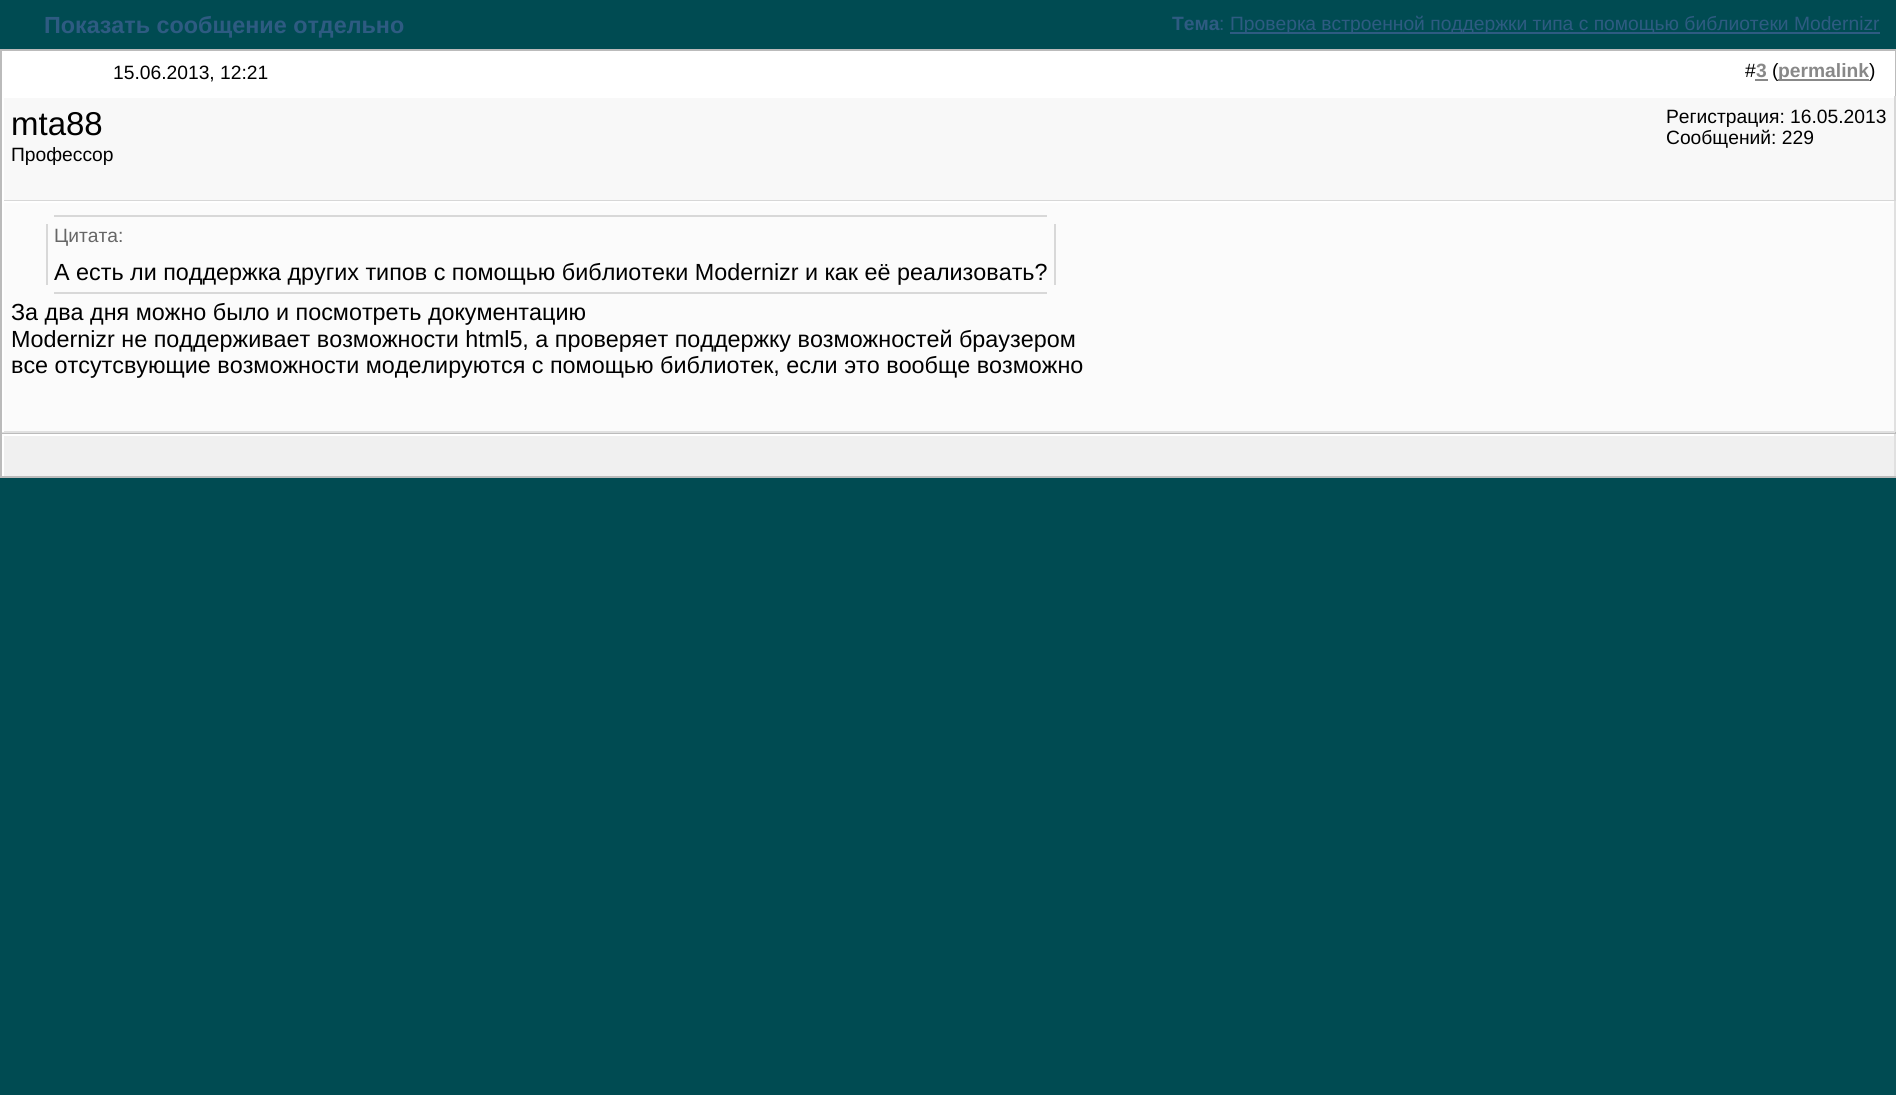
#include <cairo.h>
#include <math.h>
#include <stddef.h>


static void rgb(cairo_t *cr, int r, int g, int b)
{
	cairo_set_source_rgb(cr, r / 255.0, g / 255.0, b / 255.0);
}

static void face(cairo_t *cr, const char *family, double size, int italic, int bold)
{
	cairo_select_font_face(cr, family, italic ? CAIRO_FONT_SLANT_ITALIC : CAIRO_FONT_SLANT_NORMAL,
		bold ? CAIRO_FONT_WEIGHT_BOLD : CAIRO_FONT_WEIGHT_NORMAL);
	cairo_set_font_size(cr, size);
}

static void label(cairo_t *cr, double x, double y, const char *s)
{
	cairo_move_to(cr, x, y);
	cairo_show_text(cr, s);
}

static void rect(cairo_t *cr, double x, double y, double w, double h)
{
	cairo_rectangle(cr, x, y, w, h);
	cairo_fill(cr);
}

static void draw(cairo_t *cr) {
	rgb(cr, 0, 75, 82);
	cairo_paint(cr);
	face(cr, "Liberation Sans", 23.35, 0, 1);
	rgb(cr, 46, 91, 130);
	label(cr, 44, 33, "Показать сообщение отдельно");
	face(cr, "Liberation Sans", 19.25, 0, 1);
	label(cr, 1172, 30, "Тема");
	face(cr, "Liberation Sans", 19.25, 0, 0);
	label(cr, 1219, 30, ":");
	rect(cr, 1230, 32, 650, 2);
	label(cr, 1230, 30, "Проверка встроенной поддержки типа с помощью библиотеки Modernizr");
	cairo_rectangle(cr, 1, 50, 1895, 383);
	rgb(cr, 187, 187, 187);
	cairo_stroke(cr);
	rgb(cr, 255, 255, 255);
	rect(cr, 2, 51, 1893, 47);
	rgb(cr, 0, 0, 0);
	label(cr, 113, 79, "15.06.2013, 12:21");
	label(cr, 1745, 77, "#");
	face(cr, "Liberation Sans", 19.25, 0, 1);
	rgb(cr, 136, 136, 136);
	label(cr, 1756, 77, "3");
	rect(cr, 1755, 79, 13, 2);
	face(cr, "Liberation Sans", 19.25, 0, 0);
	rgb(cr, 0, 0, 0);
	label(cr, 1772, 77, "(");
	rgb(cr, 136, 136, 136);
	rect(cr, 1778, 79, 91, 2);
	face(cr, "Liberation Sans", 19.25, 0, 1);
	label(cr, 1778, 77, "permalink");
	face(cr, "Liberation Sans", 19.25, 0, 0);
	rgb(cr, 0, 0, 0);
	label(cr, 1869, 77, ")");
	rgb(cr, 248, 248, 248);
	rect(cr, 4, 98, 1890, 102);
	rgb(cr, 215, 215, 215);
	rect(cr, 1894, 96, 2, 105);
	rect(cr, 2, 200, 1893, 1);
	rgb(cr, 255, 255, 255);
	rect(cr, 2, 96, 2, 105);
	face(cr, "Liberation Sans", 33, 0, 0);
	rgb(cr, 0, 0, 0);
	label(cr, 11, 135, "mta88");
	face(cr, "Liberation Sans", 19.25, 0, 0);
	label(cr, 11, 161, "Профессор");
	label(cr, 1666, 123, "Регистрация: 16.05.2013");
	label(cr, 1666, 144, "Сообщений: 229");
	rgb(cr, 251, 251, 251);
	rect(cr, 4, 203, 1890, 228);
	rgb(cr, 255, 255, 255);
	rect(cr, 2, 201, 1893, 2);
	rgb(cr, 224, 224, 224);
	rect(cr, 1894, 201, 2, 231);
	rect(cr, 2, 431, 1893, 2);
	rgb(cr, 255, 255, 255);
	rect(cr, 2, 201, 2, 231);
	rgb(cr, 216, 216, 216);
	rect(cr, 54, 215, 993, 2);
	rect(cr, 1054, 224, 2, 61);
	rect(cr, 46, 224, 2, 61);
	rgb(cr, 102, 102, 102);
	label(cr, 54, 242, "Цитата:");
	face(cr, "Liberation Sans", 23.35, 0, 0);
	rgb(cr, 0, 0, 0);
	label(cr, 54, 280, "А есть ли поддержка других типов с помощью библиотеки Modernizr и как её реализовать?");
	rgb(cr, 216, 216, 216);
	rect(cr, 54, 292, 993, 2);
	rgb(cr, 0, 0, 0);
	label(cr, 11, 320, "За два дня можно было и посмотреть документацию");
	label(cr, 11, 347, "Modernizr не поддерживает возможности html5, а проверяет поддержку возможностей браузером");
	label(cr, 11, 373, "все отсутсвующие возможности моделируются с помощью библиотек, если это вообще возможно");
	rgb(cr, 187, 187, 187);
	rect(cr, 0, 476, 1896, 2);
	rect(cr, 0, 434, 2, 44);
	rgb(cr, 240, 240, 240);
	rect(cr, 4, 436, 1890, 40);
	rgb(cr, 255, 255, 255);
	rect(cr, 2, 434, 1893, 2);
	rgb(cr, 224, 224, 224);
	rect(cr, 1894, 434, 2, 42);
	rgb(cr, 255, 255, 255);
	rect(cr, 2, 434, 2, 42);
}

int main(void) {
	cairo_surface_t *surface = cairo_image_surface_create(CAIRO_FORMAT_RGB24, 1896, 1095);
	cairo_t *cr = cairo_create(surface);
	cairo_font_options_t *options = cairo_font_options_create();
	cairo_font_options_set_hint_metrics(options, CAIRO_HINT_METRICS_OFF);
	cairo_font_options_set_hint_style(options, CAIRO_HINT_STYLE_NONE);
	cairo_set_font_options(cr, options);
	cairo_set_miter_limit(cr, 4);
	draw(cr);
	cairo_surface_write_to_png(surface, "render.png");
	cairo_font_options_destroy(options);
	cairo_destroy(cr);
	cairo_surface_destroy(surface);
	return 0;
}
